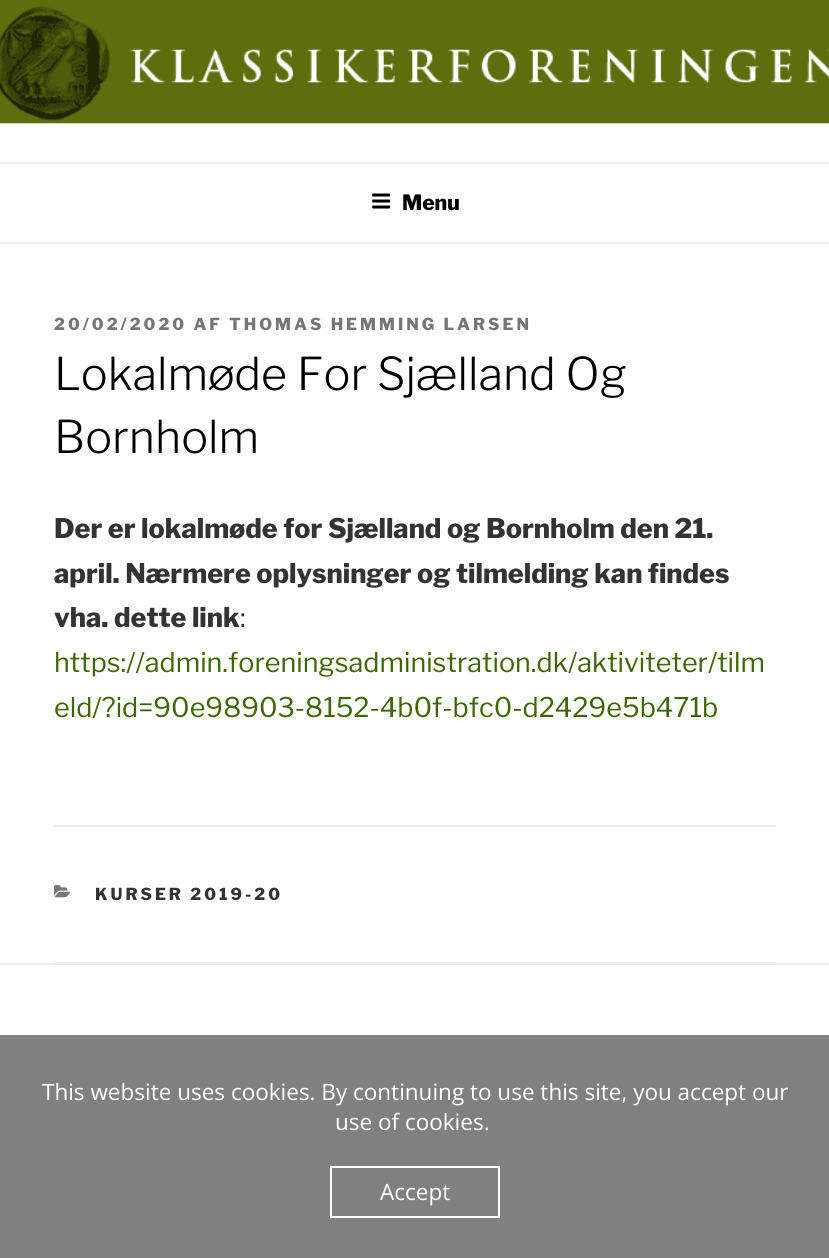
#include <cairo.h>
#include <math.h>
#include <stddef.h>


static void rgb(cairo_t *cr, int r, int g, int b)
{
	cairo_set_source_rgb(cr, r / 255.0, g / 255.0, b / 255.0);
}

static void face(cairo_t *cr, const char *family, double size, int italic, int bold)
{
	cairo_select_font_face(cr, family, italic ? CAIRO_FONT_SLANT_ITALIC : CAIRO_FONT_SLANT_NORMAL,
		bold ? CAIRO_FONT_WEIGHT_BOLD : CAIRO_FONT_WEIGHT_NORMAL);
	cairo_set_font_size(cr, size);
}

static void label(cairo_t *cr, double x, double y, const char *s)
{
	cairo_move_to(cr, x, y);
	cairo_show_text(cr, s);
}

static void tracked(cairo_t *cr, double x, double y, const char *s, double letter, double word)
{
	cairo_move_to(cr, x, y);
	while (*s) {
		char ch[5] = {0};
		int n = 0;
		do ch[n++] = *s++; while ((*s & 0xC0) == 0x80);
		cairo_show_text(cr, ch);
		cairo_rel_move_to(cr, letter + word * (*ch == ' '), 0);
	}
}

static void rect(cairo_t *cr, double x, double y, double w, double h)
{
	cairo_rectangle(cr, x, y, w, h);
	cairo_fill(cr);
}

static void image(cairo_t *cr, const char *path, double x, double y, double w, double h)
{
	cairo_surface_t *image = cairo_image_surface_create_from_png(path);
	cairo_save(cr);
	cairo_set_source_surface(cr, image, x, y);
	cairo_rectangle(cr, x, y, w, h);
	cairo_fill(cr);
	cairo_restore(cr);
	cairo_surface_destroy(image);
}

static void draw(cairo_t *cr) {
	rgb(cr, 255, 255, 255);
	cairo_paint(cr);
	image(cr, "image0.png", 0, 0, 829, 124);
	rgb(cr, 238, 238, 238);
	rect(cr, 0, 162, 829, 2);
	rect(cr, 0, 242, 829, 2);
	image(cr, "image1.png", 372, 193, 19, 16);
	face(cr, "Libre Franklin Thin", 21, 0, 0);
	rgb(cr, 0, 0, 0);
	label(cr, 402, 210, "Menu");
	face(cr, "Libre Franklin Thin", 16.5, 0, 0);
	rgb(cr, 118, 118, 118);
	tracked(cr, 54, 330, "20/02/2020 AF THOMAS HEMMING LARSEN", 3, 0);
	face(cr, "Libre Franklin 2 Thin", 45, 0, 0);
	rgb(cr, 0, 0, 0);
	label(cr, 54, 390, "Lokalmøde For Sjælland Og");
	label(cr, 54, 453, "Bornholm");
	face(cr, "Libre Franklin Thin", 27, 0, 0);
	rgb(cr, 51, 51, 51);
	label(cr, 54, 538, "Der er lokalmøde for Sjælland og Bornholm den 21.");
	label(cr, 54, 583, "april. Nærmere oplysninger og tilmelding kan findes");
	label(cr, 54, 627, "vha. dette link");
	face(cr, "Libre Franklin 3 Thin", 27, 0, 0);
	label(cr, 240, 627, ":");
	rgb(cr, 59, 102, 0);
	label(cr, 54, 672, "https://admin.foreningsadministration.dk/aktiviteter/tilm");
	label(cr, 54, 717, "eld/?id=90e98903-8152-4b0f-bfc0-d2429e5b471b");
	rgb(cr, 238, 238, 238);
	rect(cr, 54, 825, 722, 2);
	rect(cr, 54, 962, 722, 1);
	image(cr, "image2.png", 54, 885, 17, 13);
	face(cr, "Libre Franklin Thin", 16.5, 0, 0);
	rgb(cr, 51, 51, 51);
	tracked(cr, 95, 900, "KURSER 2019-20", 3, 0);
	rgb(cr, 238, 238, 238);
	rect(cr, 0, 963, 829, 2);
	rgb(cr, 128, 128, 128);
	rect(cr, 0, 1035, 829, 223);
	face(cr, "Open Sans", 22.5, 0, 0);
	rgb(cr, 255, 255, 255);
	label(cr, 42, 1100, "This website uses cookies. By continuing to use this site, you accept our");
	label(cr, 335, 1130, "use of cookies.");
	cairo_rectangle(cr, 331, 1167, 168, 50);
	cairo_stroke(cr);
	label(cr, 380, 1200, "Accept");
}

int main(void) {
	cairo_surface_t *surface = cairo_image_surface_create(CAIRO_FORMAT_RGB24, 829, 1258);
	cairo_t *cr = cairo_create(surface);
	cairo_font_options_t *options = cairo_font_options_create();
	cairo_font_options_set_hint_metrics(options, CAIRO_HINT_METRICS_OFF);
	cairo_font_options_set_hint_style(options, CAIRO_HINT_STYLE_NONE);
	cairo_set_font_options(cr, options);
	cairo_set_miter_limit(cr, 4);
	draw(cr);
	cairo_surface_write_to_png(surface, "render.png");
	cairo_font_options_destroy(options);
	cairo_destroy(cr);
	cairo_surface_destroy(surface);
	return 0;
}
